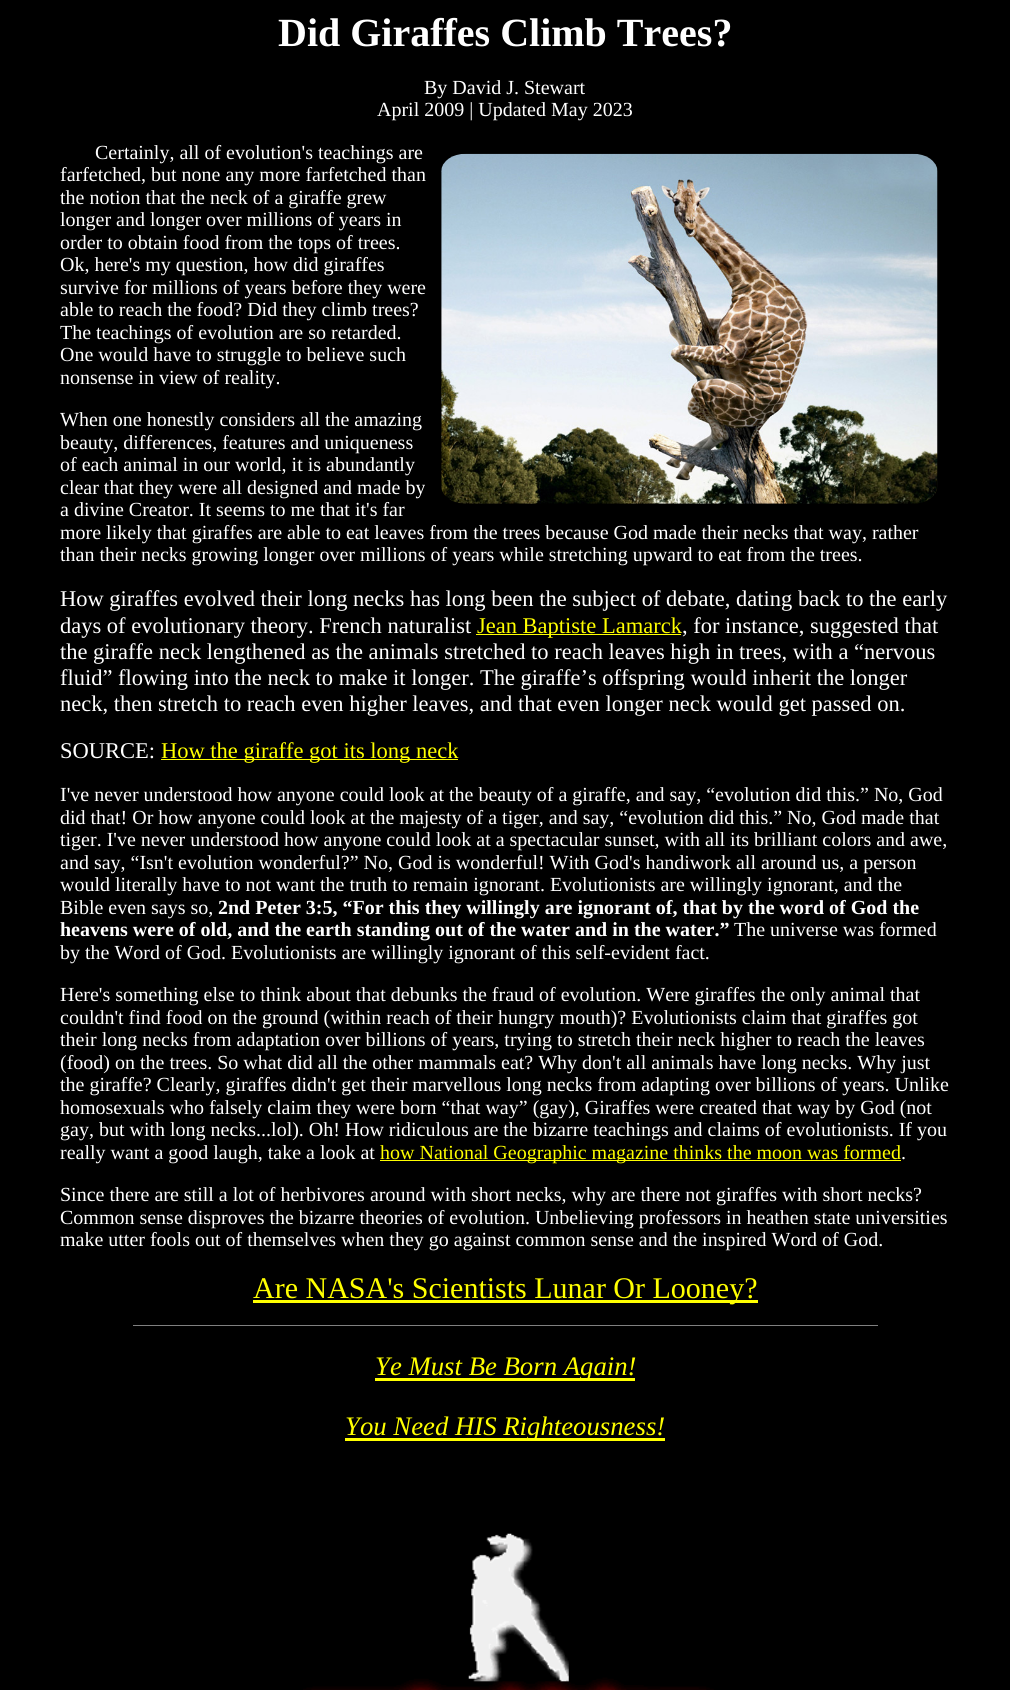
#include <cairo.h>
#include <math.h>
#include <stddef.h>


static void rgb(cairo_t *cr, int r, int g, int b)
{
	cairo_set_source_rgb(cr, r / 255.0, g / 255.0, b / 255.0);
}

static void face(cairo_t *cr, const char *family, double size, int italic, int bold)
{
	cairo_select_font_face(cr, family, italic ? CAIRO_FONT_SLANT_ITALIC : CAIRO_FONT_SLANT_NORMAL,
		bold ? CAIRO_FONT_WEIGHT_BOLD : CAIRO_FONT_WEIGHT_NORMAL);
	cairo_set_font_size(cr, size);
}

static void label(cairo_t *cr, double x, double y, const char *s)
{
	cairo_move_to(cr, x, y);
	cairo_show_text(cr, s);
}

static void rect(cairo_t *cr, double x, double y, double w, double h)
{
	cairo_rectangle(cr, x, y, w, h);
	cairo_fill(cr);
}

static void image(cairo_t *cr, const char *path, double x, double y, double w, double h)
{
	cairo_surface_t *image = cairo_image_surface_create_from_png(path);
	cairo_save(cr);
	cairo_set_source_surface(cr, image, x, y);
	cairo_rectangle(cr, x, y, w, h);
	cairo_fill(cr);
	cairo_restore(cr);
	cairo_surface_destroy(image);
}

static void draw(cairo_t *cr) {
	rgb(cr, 0, 0, 0);
	cairo_paint(cr);
	face(cr, "Liberation Serif", 40, 0, 1);
	rgb(cr, 255, 255, 255);
	label(cr, 278, 46, "Did Giraffes Climb Trees?");
	face(cr, "Liberation Serif", 20, 0, 0);
	label(cr, 424, 94, "By David J. Stewart");
	label(cr, 377, 116, "April 2009 | Updated May 2023");
	label(cr, 95, 159, "Certainly, all of evolution's teachings are");
	image(cr, "image0.png", 441, 153, 497, 351);
	label(cr, 60, 181, "farfetched, but none any more farfetched than");
	label(cr, 60, 204, "the notion that the neck of a giraffe grew");
	label(cr, 60, 226, "longer and longer over millions of years in");
	label(cr, 60, 249, "order to obtain food from the tops of trees.");
	label(cr, 60, 271, "Ok, here's my question, how did giraffes");
	label(cr, 60, 294, "survive for millions of years before they were");
	label(cr, 60, 316, "able to reach the food? Did they climb trees?");
	label(cr, 60, 339, "The teachings of evolution are so retarded.");
	label(cr, 60, 361, "One would have to struggle to believe such");
	label(cr, 60, 384, "nonsense in view of reality.");
	label(cr, 60, 426, "When one honestly considers all the amazing");
	label(cr, 60, 449, "beauty, differences, features and uniqueness");
	label(cr, 60, 471, "of each animal in our world, it is abundantly");
	label(cr, 60, 494, "clear that they were all designed and made by");
	label(cr, 60, 516, "a divine Creator. It seems to me that it's far");
	label(cr, 60, 539, "more likely that giraffes are able to eat leaves from the trees because God made their necks that way, rather");
	label(cr, 60, 561, "than their necks growing longer over millions of years while stretching upward to eat from the trees.");
	face(cr, "Liberation Serif", 22.5, 0, 0);
	label(cr, 60, 606, "How giraffes evolved their long necks has long been the subject of debate, dating back to the early");
	label(cr, 60, 633, "days of evolutionary theory. French naturalist");
	rgb(cr, 255, 255, 0);
	rect(cr, 476, 634, 205, 1);
	label(cr, 477, 633, "Jean Baptiste Lamarck");
	rgb(cr, 255, 255, 255);
	label(cr, 682, 633, ", for instance, suggested that");
	label(cr, 60, 659, "the giraffe neck lengthened as the animals stretched to reach leaves high in trees, with a “nervous");
	label(cr, 60, 685, "fluid” flowing into the neck to make it longer. The giraffe’s offspring would inherit the longer");
	label(cr, 60, 711, "neck, then stretch to reach even higher leaves, and that even longer neck would get passed on.");
	label(cr, 60, 758, "SOURCE:");
	rgb(cr, 255, 255, 0);
	rect(cr, 161, 759, 297, 1);
	label(cr, 161, 758, "How the giraffe got its long neck");
	face(cr, "Liberation Serif", 20, 0, 0);
	rgb(cr, 255, 255, 255);
	label(cr, 60, 801, "I've never understood how anyone could look at the beauty of a giraffe, and say, “evolution did this.” No, God");
	label(cr, 60, 824, "did that! Or how anyone could look at the majesty of a tiger, and say, “evolution did this.” No, God made that");
	label(cr, 60, 846, "tiger. I've never understood how anyone could look at a spectacular sunset, with all its brilliant colors and awe,");
	label(cr, 60, 869, "and say, “Isn't evolution wonderful?” No, God is wonderful! With God's handiwork all around us, a person");
	label(cr, 60, 891, "would literally have to not want the truth to remain ignorant. Evolutionists are willingly ignorant, and the");
	label(cr, 60, 914, "Bible even says so,");
	face(cr, "Liberation Serif", 20, 0, 1);
	label(cr, 218, 914, "2nd Peter 3:5, “For this they willingly are ignorant of, that by the word of God the");
	label(cr, 60, 936, "heavens were of old, and the earth standing out of the water and in the water.”");
	face(cr, "Liberation Serif", 20, 0, 0);
	label(cr, 734, 936, "The universe was formed");
	label(cr, 60, 959, "by the Word of God. Evolutionists are willingly ignorant of this self-evident fact.");
	label(cr, 60, 1001, "Here's something else to think about that debunks the fraud of evolution. Were giraffes the only animal that");
	label(cr, 60, 1024, "couldn't find food on the ground (within reach of their hungry mouth)? Evolutionists claim that giraffes got");
	label(cr, 60, 1046, "their long necks from adaptation over billions of years, trying to stretch their neck higher to reach the leaves");
	label(cr, 60, 1069, "(food) on the trees. So what did all the other mammals eat? Why don't all animals have long necks. Why just");
	label(cr, 60, 1091, "the giraffe? Clearly, giraffes didn't get their marvellous long necks from adapting over billions of years. Unlike");
	label(cr, 60, 1114, "homosexuals who falsely claim they were born “that way” (gay), Giraffes were created that way by God (not");
	label(cr, 60, 1136, "gay, but with long necks...lol). Oh! How ridiculous are the bizarre teachings and claims of evolutionists. If you");
	label(cr, 60, 1159, "really want a good laugh, take a look at");
	rgb(cr, 255, 255, 0);
	rect(cr, 380, 1160, 521, 1);
	label(cr, 380, 1159, "how National Geographic magazine thinks the moon was formed");
	rgb(cr, 255, 255, 255);
	label(cr, 901, 1159, ".");
	label(cr, 60, 1201, "Since there are still a lot of herbivores around with short necks, why are there not giraffes with short necks?");
	label(cr, 60, 1224, "Common sense disproves the bizarre theories of evolution. Unbelieving professors in heathen state universities");
	label(cr, 60, 1246, "make utter fools out of themselves when they go against common sense and the inspired Word of God.");
	rgb(cr, 255, 255, 0);
	rect(cr, 253, 1300, 505, 3);
	face(cr, "Liberation Serif", 30, 0, 0);
	label(cr, 253, 1298, "Are NASA's Scientists Lunar Or Looney?");
	rgb(cr, 128, 128, 128);
	rect(cr, 133, 1325, 745, 1);
	rgb(cr, 255, 255, 0);
	rect(cr, 375, 1378, 260, 3);
	face(cr, "Liberation Serif", 26.75, 1, 0);
	label(cr, 375, 1375, "Ye Must Be Born Again!");
	rect(cr, 345, 1438, 320, 3);
	label(cr, 345, 1435, "You Need HIS Righteousness!");
	image(cr, "image1.png", 303, 1533, 411, 157);
}

int main(void) {
	cairo_surface_t *surface = cairo_image_surface_create(CAIRO_FORMAT_RGB24, 1010, 1690);
	cairo_t *cr = cairo_create(surface);
	cairo_font_options_t *options = cairo_font_options_create();
	cairo_font_options_set_hint_metrics(options, CAIRO_HINT_METRICS_OFF);
	cairo_font_options_set_hint_style(options, CAIRO_HINT_STYLE_NONE);
	cairo_set_font_options(cr, options);
	cairo_set_miter_limit(cr, 4);
	draw(cr);
	cairo_surface_write_to_png(surface, "render.png");
	cairo_font_options_destroy(options);
	cairo_destroy(cr);
	cairo_surface_destroy(surface);
	return 0;
}
